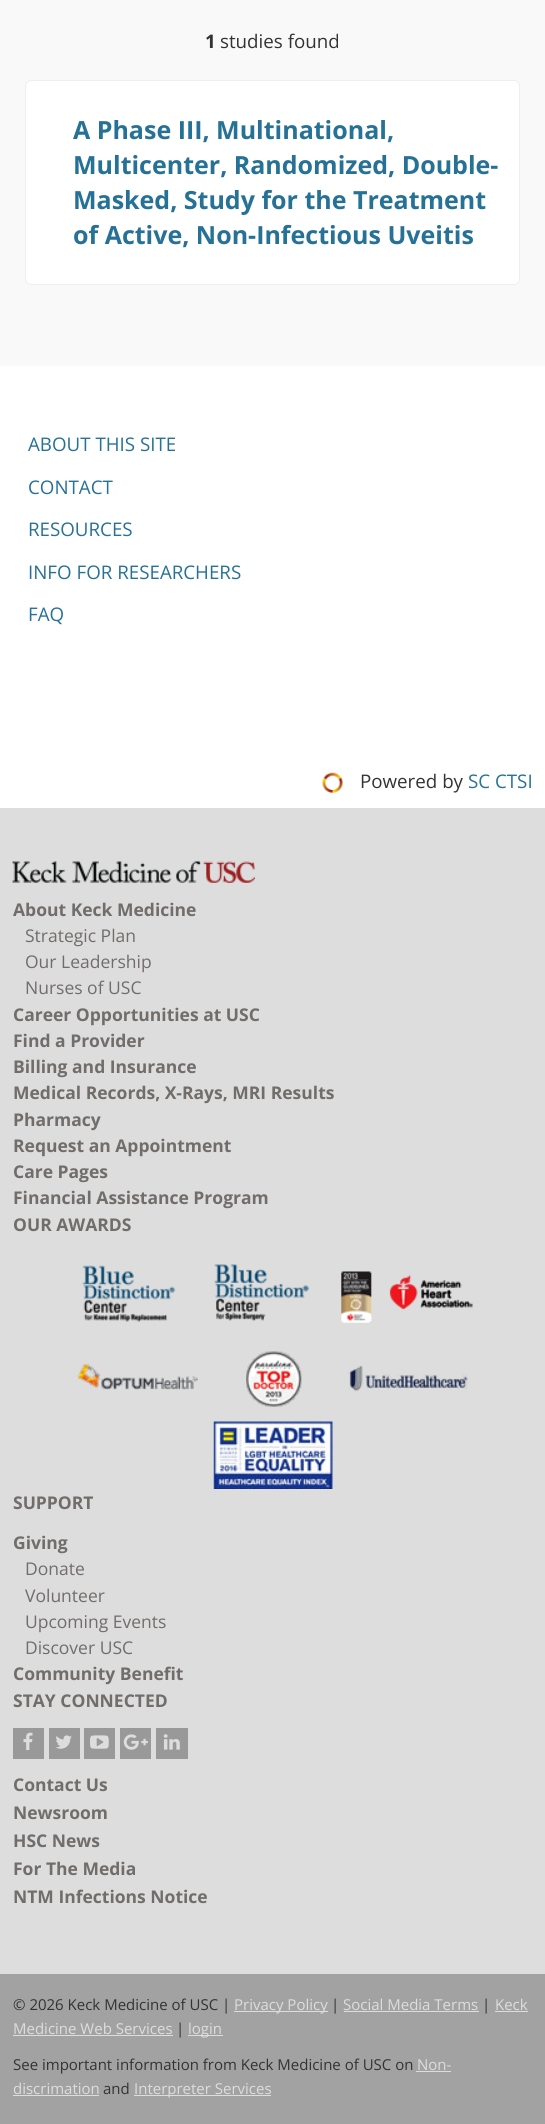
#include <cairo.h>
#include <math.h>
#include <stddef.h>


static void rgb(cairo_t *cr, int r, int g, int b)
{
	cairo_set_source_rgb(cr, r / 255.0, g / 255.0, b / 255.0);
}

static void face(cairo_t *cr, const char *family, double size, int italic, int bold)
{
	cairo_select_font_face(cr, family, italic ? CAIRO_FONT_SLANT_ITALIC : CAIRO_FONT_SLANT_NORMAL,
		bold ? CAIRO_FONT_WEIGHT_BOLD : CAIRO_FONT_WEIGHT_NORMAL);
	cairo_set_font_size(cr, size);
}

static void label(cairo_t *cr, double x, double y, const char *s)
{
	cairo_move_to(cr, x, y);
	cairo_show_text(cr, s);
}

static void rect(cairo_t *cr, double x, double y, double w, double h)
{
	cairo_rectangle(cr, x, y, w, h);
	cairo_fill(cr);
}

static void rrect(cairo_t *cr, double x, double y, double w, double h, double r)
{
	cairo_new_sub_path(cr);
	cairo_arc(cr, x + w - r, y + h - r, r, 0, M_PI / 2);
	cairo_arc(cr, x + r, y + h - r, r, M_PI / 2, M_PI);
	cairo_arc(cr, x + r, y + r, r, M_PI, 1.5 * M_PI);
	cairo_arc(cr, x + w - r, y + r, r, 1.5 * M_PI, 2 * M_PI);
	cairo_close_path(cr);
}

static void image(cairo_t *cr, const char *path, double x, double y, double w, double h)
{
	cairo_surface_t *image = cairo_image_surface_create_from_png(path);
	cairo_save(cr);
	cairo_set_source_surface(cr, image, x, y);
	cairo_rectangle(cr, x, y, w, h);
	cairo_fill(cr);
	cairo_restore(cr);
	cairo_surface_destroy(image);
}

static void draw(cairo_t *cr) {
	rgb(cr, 255, 255, 255);
	cairo_paint(cr);
	rgb(cr, 249, 249, 249);
	rect(cr, 0, 0, 545, 366);
	face(cr, "Open Sans", 18.75, 0, 1);
	rgb(cr, 51, 51, 51);
	label(cr, 205, 48, "1");
	face(cr, "Open Sans", 18.75, 0, 0);
	label(cr, 220, 48, "studies found");
	rgb(cr, 255, 255, 255);
	rrect(cr, 25.5, 80.5, 494, 204, 5.5);
	cairo_fill_preserve(cr);
	rgb(cr, 238, 238, 238);
	cairo_set_line_width(cr, 1);
	cairo_stroke(cr);
	face(cr, "Open Sans", 25, 0, 1);
	rgb(cr, 38, 113, 150);
	label(cr, 73, 139, "A Phase III, Multinational,");
	label(cr, 73, 174, "Multicenter, Randomized, Double-");
	label(cr, 73, 209, "Masked, Study for the Treatment");
	label(cr, 73, 244, "of Active, Non-Infectious Uveitis");
	face(cr, "Open Sans", 18.75, 0, 0);
	label(cr, 28, 451, "ABOUT THIS SITE");
	label(cr, 28, 494, "CONTACT");
	label(cr, 28, 536, "RESOURCES");
	label(cr, 28, 579, "INFO FOR RESEARCHERS");
	label(cr, 28, 621, "FAQ");
	image(cr, "image0.png", 322, 772, 21, 21);
	rgb(cr, 51, 51, 51);
	label(cr, 360, 788, "Powered by");
	rgb(cr, 38, 113, 150);
	label(cr, 468, 788, "SC CTSI");
	rgb(cr, 221, 221, 221);
	rect(cr, 0, 808, 545, 1166);
	image(cr, "image1.png", 12, 861, 243, 22);
	face(cr, "Open Sans", 17.5, 0, 1);
	rgb(cr, 112, 109, 106);
	label(cr, 13, 916, "About Keck Medicine");
	face(cr, "Open Sans", 17.5, 0, 0);
	label(cr, 25, 942, "Strategic Plan");
	label(cr, 25, 968, "Our Leadership");
	label(cr, 25, 994, "Nurses of USC");
	face(cr, "Open Sans", 17.5, 0, 1);
	label(cr, 13, 1021, "Career Opportunities at USC");
	label(cr, 13, 1047, "Find a Provider");
	label(cr, 13, 1073, "Billing and Insurance");
	label(cr, 13, 1099, "Medical Records, X-Rays, MRI Results");
	label(cr, 13, 1126, "Pharmacy");
	label(cr, 13, 1152, "Request an Appointment");
	label(cr, 13, 1178, "Care Pages");
	label(cr, 13, 1204, "Financial Assistance Program");
	label(cr, 13, 1231, "OUR AWARDS");
	image(cr, "image2.png", 82, 1265, 94, 57);
	image(cr, "image3.png", 214, 1264, 96, 57);
	image(cr, "image4.png", 341, 1271, 31, 52);
	image(cr, "image5.png", 389, 1275, 84, 35);
	image(cr, "image6.png", 77, 1363, 121, 27);
	image(cr, "image7.png", 246, 1351, 56, 56);
	image(cr, "image8.png", 347, 1365, 121, 28);
	image(cr, "image9.png", 213, 1421, 120, 68);
	label(cr, 13, 1509, "SUPPORT");
	label(cr, 13, 1549, "Giving");
	face(cr, "Open Sans", 17.5, 0, 0);
	label(cr, 25, 1575, "Donate");
	label(cr, 25, 1602, "Volunteer");
	label(cr, 25, 1628, "Upcoming Events");
	label(cr, 25, 1654, "Discover USC");
	face(cr, "Open Sans", 17.5, 0, 1);
	label(cr, 13, 1680, "Community Benefit");
	label(cr, 13, 1707, "STAY CONNECTED");
	rgb(cr, 153, 153, 153);
	rect(cr, 13, 1728, 31, 31);
	image(cr, "image10.png", 23, 1732, 10, 19);
	rect(cr, 49, 1728, 31, 31);
	image(cr, "image11.png", 55, 1735, 17, 14);
	rect(cr, 84, 1728, 31, 31);
	image(cr, "image12.png", 90, 1735, 19, 14);
	rect(cr, 120, 1728, 31, 31);
	image(cr, "image13.png", 123, 1734, 25, 16);
	rect(cr, 156, 1728, 32, 31);
	image(cr, "image14.png", 163, 1734, 17, 16);
	rgb(cr, 112, 109, 106);
	label(cr, 13, 1791, "Contact Us");
	label(cr, 13, 1819, "Newsroom");
	label(cr, 13, 1847, "HSC News");
	label(cr, 13, 1875, "For The Media");
	label(cr, 13, 1903, "NTM Infections Notice");
	rgb(cr, 162, 162, 162);
	rect(cr, 0, 1974, 545, 150);
	face(cr, "Open Sans", 15, 0, 0);
	rgb(cr, 51, 51, 51);
	label(cr, 13, 2010, "© 2026 Keck Medicine of USC |");
	rgb(cr, 221, 221, 221);
	rect(cr, 234, 2011, 94, 1);
	label(cr, 234, 2010, "Privacy Policy");
	rgb(cr, 51, 51, 51);
	label(cr, 331, 2010, "|");
	rgb(cr, 221, 221, 221);
	label(cr, 343, 2010, "Social Media Terms");
	rect(cr, 344, 2011, 135, 1);
	rgb(cr, 51, 51, 51);
	label(cr, 482, 2010, "|");
	rgb(cr, 221, 221, 221);
	label(cr, 495, 2010, "Keck");
	rect(cr, 495, 2011, 33, 1);
	label(cr, 13, 2034, "Medicine Web Services");
	rect(cr, 13, 2035, 160, 1);
	rgb(cr, 51, 51, 51);
	label(cr, 176, 2034, "|");
	rgb(cr, 221, 221, 221);
	rect(cr, 188, 2035, 35, 1);
	label(cr, 188, 2034, "login");
	rgb(cr, 51, 51, 51);
	label(cr, 13, 2070, "See important information from Keck Medicine of USC on");
	rgb(cr, 221, 221, 221);
	label(cr, 417, 2070, "Non-");
	rect(cr, 416, 2071, 35, 1);
	label(cr, 13, 2094, "discrimation");
	rect(cr, 13, 2095, 86, 1);
	rgb(cr, 51, 51, 51);
	label(cr, 103, 2094, "and");
	rgb(cr, 221, 221, 221);
	rect(cr, 134, 2095, 137, 1);
	label(cr, 134, 2094, "Interpreter Services");
}

int main(void) {
	cairo_surface_t *surface = cairo_image_surface_create(CAIRO_FORMAT_RGB24, 545, 2124);
	cairo_t *cr = cairo_create(surface);
	cairo_font_options_t *options = cairo_font_options_create();
	cairo_font_options_set_hint_metrics(options, CAIRO_HINT_METRICS_OFF);
	cairo_font_options_set_hint_style(options, CAIRO_HINT_STYLE_NONE);
	cairo_set_font_options(cr, options);
	cairo_set_miter_limit(cr, 4);
	draw(cr);
	cairo_surface_write_to_png(surface, "render.png");
	cairo_font_options_destroy(options);
	cairo_destroy(cr);
	cairo_surface_destroy(surface);
	return 0;
}
